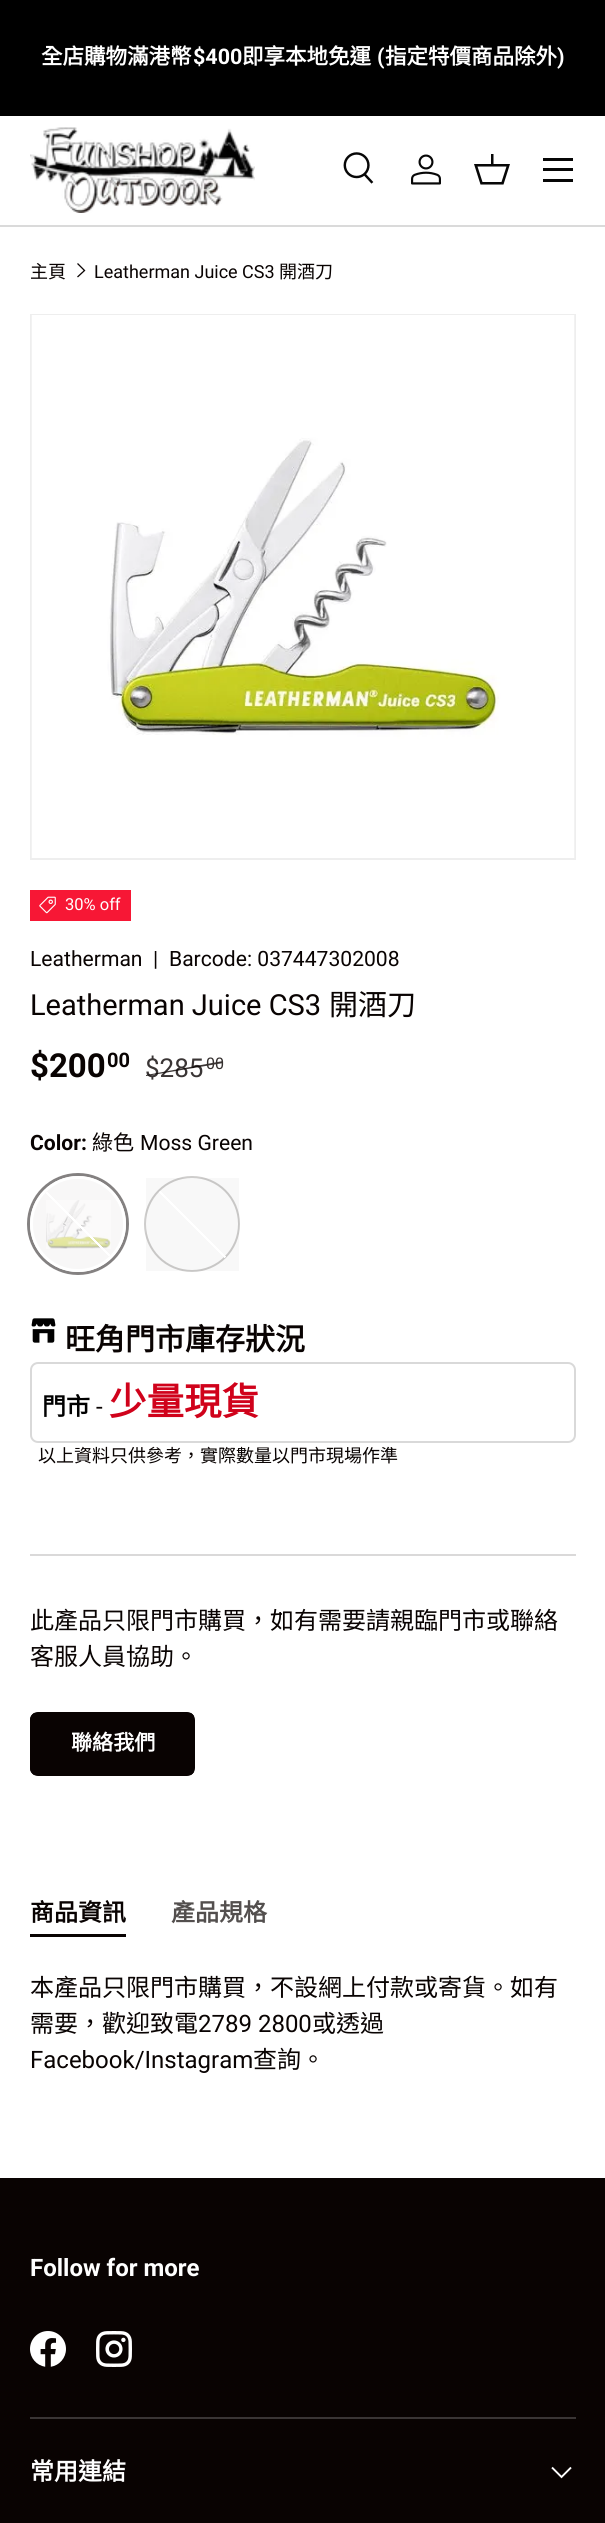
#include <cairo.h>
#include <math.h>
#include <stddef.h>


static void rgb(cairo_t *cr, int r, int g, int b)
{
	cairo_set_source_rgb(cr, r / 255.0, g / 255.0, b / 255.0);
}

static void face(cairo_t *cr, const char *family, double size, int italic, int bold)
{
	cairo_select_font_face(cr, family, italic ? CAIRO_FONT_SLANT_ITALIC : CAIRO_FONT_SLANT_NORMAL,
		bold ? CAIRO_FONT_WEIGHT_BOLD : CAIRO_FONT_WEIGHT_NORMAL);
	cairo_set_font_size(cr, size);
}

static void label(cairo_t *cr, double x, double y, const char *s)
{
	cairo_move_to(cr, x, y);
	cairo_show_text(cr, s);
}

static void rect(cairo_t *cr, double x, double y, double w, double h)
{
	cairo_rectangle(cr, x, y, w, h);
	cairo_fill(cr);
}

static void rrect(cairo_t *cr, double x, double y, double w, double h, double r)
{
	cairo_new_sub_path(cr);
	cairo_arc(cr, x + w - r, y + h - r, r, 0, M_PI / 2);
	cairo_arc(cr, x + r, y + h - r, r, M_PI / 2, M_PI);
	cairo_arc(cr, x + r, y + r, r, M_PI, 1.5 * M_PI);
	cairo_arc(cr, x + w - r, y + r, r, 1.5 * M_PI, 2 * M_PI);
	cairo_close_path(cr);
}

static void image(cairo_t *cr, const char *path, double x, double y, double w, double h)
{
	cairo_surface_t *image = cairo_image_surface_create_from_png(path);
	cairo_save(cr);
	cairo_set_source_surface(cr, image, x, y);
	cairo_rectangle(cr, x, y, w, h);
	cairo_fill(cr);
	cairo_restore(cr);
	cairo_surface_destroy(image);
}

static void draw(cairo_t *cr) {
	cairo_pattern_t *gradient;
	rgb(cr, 255, 255, 255);
	cairo_paint(cr);
	rgb(cr, 0, 0, 0);
	rect(cr, 0, 0, 605, 116);
	face(cr, "Noto Sans CJK TC", 21.5, 0, 1);
	rgb(cr, 255, 255, 255);
	label(cr, 41, 64, "全店購物滿港幣");
	face(cr, "Roboto", 21.5, 0, 1);
	label(cr, 193, 64, "$400");
	face(cr, "Noto Sans CJK TC", 21.5, 0, 1);
	label(cr, 242, 64, "即享本地免運");
	face(cr, "Roboto", 21.5, 0, 1);
	label(cr, 377, 64, "(");
	face(cr, "Noto Sans CJK TC", 21.5, 0, 1);
	label(cr, 385, 64, "指定特價商品除外");
	face(cr, "Roboto", 21.5, 0, 1);
	label(cr, 557, 64, ")");
	rgb(cr, 218, 218, 218);
	rect(cr, 0, 225, 605, 2);
	image(cr, "image0.png", 30, 127, 225, 86);
	image(cr, "image1.png", 343, 152, 31, 32);
	image(cr, "image2.png", 411, 154, 30, 31);
	rgb(cr, 7, 7, 7);
	cairo_new_path(cr);
	cairo_move_to(cr, 491, 164);
	cairo_line_to(cr, 491, 154);
	cairo_line_to(cr, 493.5, 154);
	cairo_line_to(cr, 493.5, 164);
	cairo_line_to(cr, 510, 164);
	cairo_line_to(cr, 503.5, 184.5);
	cairo_line_to(cr, 480.5, 184.5);
	cairo_line_to(cr, 474, 164);
	cairo_close_path(cr);
	cairo_move_to(cr, 477.5, 166.5);
	cairo_line_to(cr, 482.5, 182);
	cairo_line_to(cr, 501.5, 182);
	cairo_line_to(cr, 506.5, 166.5);
	cairo_close_path(cr);
	cairo_fill(cr);
	rect(cr, 543, 158, 30, 3);
	rect(cr, 543, 179, 30, 3);
	rect(cr, 543, 168, 30, 3);
	face(cr, "Noto Sans CJK TC", 18, 0, 0);
	rgb(cr, 9, 3, 2);
	label(cr, 30, 278, "主頁");
	cairo_new_path(cr);
	cairo_move_to(cr, 77.5, 263.5);
	cairo_line_to(cr, 84.5, 270.5);
	cairo_line_to(cr, 77.5, 277);
	cairo_set_line_width(cr, 1.3);
	cairo_stroke(cr);
	face(cr, "Roboto", 18, 0, 0);
	label(cr, 94, 278, "Leatherman Juice CS3");
	face(cr, "Noto Sans CJK TC", 18, 0, 0);
	label(cr, 279, 278, "開酒刀");
	cairo_rectangle(cr, 31, 315, 544, 544);
	rgb(cr, 238, 238, 238);
	cairo_set_line_width(cr, 2);
	cairo_stroke(cr);
	image(cr, "image3.png", 31, 315, 544, 543);
	rgb(cr, 247, 23, 53);
	rect(cr, 30, 890, 101, 31);
	image(cr, "image4.png", 39, 896, 17, 18);
	face(cr, "Roboto", 16.5, 0, 0);
	rgb(cr, 255, 255, 255);
	label(cr, 65, 910, "30% off");
	face(cr, "Roboto", 21.1, 0, 0);
	rgb(cr, 9, 3, 2);
	label(cr, 30, 966, "Leatherman");
	label(cr, 153, 966, "|");
	label(cr, 169, 966, "Barcode: 037447302008");
	face(cr, "Roboto", 29, 0, 0);
	label(cr, 30, 1015, "Leatherman Juice CS3");
	face(cr, "Noto Sans CJK TC", 29, 0, 0);
	label(cr, 329, 1015, "開酒刀");
	face(cr, "Roboto", 33, 0, 1);
	label(cr, 30, 1077, "$200");
	face(cr, "Roboto", 20, 0, 1);
	label(cr, 107, 1067, "00");
	face(cr, "Roboto", 26, 0, 0);
	rgb(cr, 58, 53, 53);
	label(cr, 145, 1077, "$285");
	cairo_set_source_rgba(cr, 0.035, 0.012, 0.008, 0.8);
	cairo_new_path(cr);
	cairo_move_to(cr, 146, 1075);
	cairo_line_to(cr, 223, 1061);
	cairo_line_to(cr, 223, 1063);
	cairo_line_to(cr, 146, 1076);
	cairo_close_path(cr);
	cairo_fill(cr);
	face(cr, "Roboto", 16, 0, 0);
	rgb(cr, 53, 48, 47);
	label(cr, 206, 1069, "00");
	face(cr, "Roboto", 21.1, 0, 1);
	rgb(cr, 9, 3, 2);
	label(cr, 30, 1150, "Color:");
	face(cr, "Noto Sans CJK TC", 21.1, 0, 0);
	label(cr, 92, 1150, "綠色");
	face(cr, "Roboto", 21.1, 0, 0);
	label(cr, 140, 1150, "Moss Green");
	cairo_new_path(cr);
	cairo_arc(cr, 78, 1224, 49.5, 0, 2 * M_PI);
	rgb(cr, 132, 129, 129);
	cairo_set_line_width(cr, 3);
	cairo_stroke(cr);
	cairo_arc(cr, 78, 1224, 46.5, 0, 2 * M_PI);
	rgb(cr, 255, 255, 255);
	cairo_stroke(cr);
	rgb(cr, 243, 242, 242);
	cairo_arc(cr, 78, 1224, 45, 0, 2 * M_PI);
	cairo_fill(cr);
	cairo_set_source_rgba(cr, 1, 1, 1, 0.4);
	cairo_arc(cr, 78, 1224, 45, 0, 2 * M_PI);
	cairo_fill(cr);
	image(cr, "image5.png", 46, 1200, 65, 49);
	gradient = cairo_pattern_create_linear(123, 1179, 33, 1269);
	cairo_pattern_add_color_stop_rgba(gradient, 0.49, 1, 1, 1, 0);
	cairo_pattern_add_color_stop_rgba(gradient, 0.49, 1, 1, 1, 1);
	cairo_pattern_add_color_stop_rgba(gradient, 0.51, 1, 1, 1, 1);
	cairo_pattern_add_color_stop_rgba(gradient, 0.51, 1, 1, 1, 0);
	cairo_set_source(cr, gradient);
	cairo_pattern_destroy(gradient);
	cairo_arc(cr, 78, 1224, 45, 0, 2 * M_PI);
	cairo_fill(cr);
	cairo_arc(cr, 192, 1224, 47, 0, 2 * M_PI);
	rgb(cr, 206, 205, 204);
	cairo_set_line_width(cr, 2);
	cairo_stroke(cr);
	cairo_set_source_rgba(cr, 0.035, 0.012, 0.008, 0.03);
	rect(cr, 146, 1178, 93, 93);
	gradient = cairo_pattern_create_linear(239, 1178, 146, 1271);
	cairo_pattern_add_color_stop_rgba(gradient, 0.49, 1, 1, 1, 0);
	cairo_pattern_add_color_stop_rgba(gradient, 0.49, 1, 1, 1, 1);
	cairo_pattern_add_color_stop_rgba(gradient, 0.51, 1, 1, 1, 1);
	cairo_pattern_add_color_stop_rgba(gradient, 0.51, 1, 1, 1, 0);
	cairo_set_source(cr, gradient);
	cairo_pattern_destroy(gradient);
	cairo_arc(cr, 192.5, 1224.5, 46.5, 0, 2 * M_PI);
	cairo_fill(cr);
	image(cr, "image6.png", 31, 1318, 25, 25);
	face(cr, "Noto Sans CJK TC", 30, 0, 1);
	rgb(cr, 9, 3, 2);
	label(cr, 65, 1350, "旺角門市庫存狀況");
	rrect(cr, 31, 1363, 544, 79, 7);
	rgb(cr, 217, 217, 217);
	cairo_stroke(cr);
	face(cr, "Noto Sans CJK TC", 24, 0, 1);
	rgb(cr, 0, 0, 0);
	label(cr, 42, 1415, "門市");
	face(cr, "Roboto", 24, 0, 0);
	rgb(cr, 9, 3, 2);
	label(cr, 96, 1415, "-");
	face(cr, "Noto Sans CJK TC", 37.5, 0, 1);
	rgb(cr, 208, 2, 27);
	label(cr, 109, 1415, "少量現貨");
	face(cr, "Noto Sans CJK TC", 18, 0, 0);
	rgb(cr, 9, 3, 2);
	label(cr, 38, 1462, "以上資料只供參考，實際數量以門市現場作準");
	rgb(cr, 218, 217, 217);
	rect(cr, 30, 1554, 546, 2);
	face(cr, "Noto Sans CJK TC", 24, 0, 0);
	rgb(cr, 9, 3, 2);
	label(cr, 30, 1629, "此產品只限門市購買，如有需要請親臨門市或聯絡");
	label(cr, 30, 1665, "客服人員協助。");
	cairo_save(cr);
	rrect(cr, 30, 1712, 165, 64, 8);
	cairo_clip(cr);
	gradient = cairo_pattern_create_linear(-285, 1685, 186, 1803);
	cairo_pattern_add_color_stop_rgba(gradient, 0.6, 0.212, 0.188, 0.184, 1);
	cairo_pattern_add_color_stop_rgba(gradient, 0.6, 0.035, 0.012, 0.008, 1);
	cairo_pattern_add_color_stop_rgba(gradient, 1, 0.035, 0.012, 0.008, 1);
	cairo_set_source(cr, gradient);
	cairo_pattern_destroy(gradient);
	rect(cr, 30, 1713, 164, 62);
	cairo_restore(cr);
	rrect(cr, 31, 1713, 163, 62, 7);
	cairo_stroke(cr);
	face(cr, "Noto Sans CJK TC", 21.1, 0, 1);
	rgb(cr, 255, 255, 255);
	label(cr, 71, 1750, "聯絡我們");
	face(cr, "Noto Sans CJK TC", 24, 0, 1);
	rgb(cr, 9, 3, 2);
	label(cr, 30, 1921, "商品資訊");
	rect(cr, 30, 1934, 96, 3);
	rgb(cr, 83, 79, 78);
	label(cr, 171, 1921, "產品規格");
	face(cr, "Noto Sans CJK TC", 24, 0, 0);
	rgb(cr, 9, 3, 2);
	label(cr, 30, 1996, "本產品只限門市購買，不設網上付款或寄貨。如有");
	label(cr, 30, 2032, "需要，歡迎致電");
	face(cr, "Roboto", 24, 0, 0);
	label(cr, 198, 2032, "2789 2800");
	face(cr, "Noto Sans CJK TC", 24, 0, 0);
	label(cr, 312, 2032, "或透過");
	face(cr, "Roboto", 24, 0, 0);
	label(cr, 30, 2068, "Facebook/Instagram");
	face(cr, "Noto Sans CJK TC", 24, 0, 0);
	label(cr, 253, 2068, "查詢。");
	rect(cr, 0, 2178, 605, 345);
	face(cr, "Roboto", 24, 0, 1);
	rgb(cr, 255, 255, 255);
	label(cr, 30, 2276, "Follow for more");
	image(cr, "image7.png", 30, 2331, 36, 36);
	image(cr, "image8.png", 96, 2331, 36, 36);
	rgb(cr, 58, 53, 53);
	rect(cr, 30, 2417, 546, 2);
	face(cr, "Noto Sans CJK TC", 24, 0, 1);
	rgb(cr, 255, 255, 255);
	label(cr, 30, 2480, "常用連結");
	cairo_new_path(cr);
	cairo_move_to(cr, 571, 2467.5);
	cairo_line_to(cr, 561.5, 2477);
	cairo_line_to(cr, 552, 2467.5);
	cairo_set_line_width(cr, 1.9);
	cairo_stroke(cr);
}

int main(void) {
	cairo_surface_t *surface = cairo_image_surface_create(CAIRO_FORMAT_RGB24, 605, 2523);
	cairo_t *cr = cairo_create(surface);
	cairo_font_options_t *options = cairo_font_options_create();
	cairo_font_options_set_hint_metrics(options, CAIRO_HINT_METRICS_OFF);
	cairo_font_options_set_hint_style(options, CAIRO_HINT_STYLE_NONE);
	cairo_set_font_options(cr, options);
	cairo_set_miter_limit(cr, 4);
	draw(cr);
	cairo_surface_write_to_png(surface, "render.png");
	cairo_font_options_destroy(options);
	cairo_destroy(cr);
	cairo_surface_destroy(surface);
	return 0;
}
